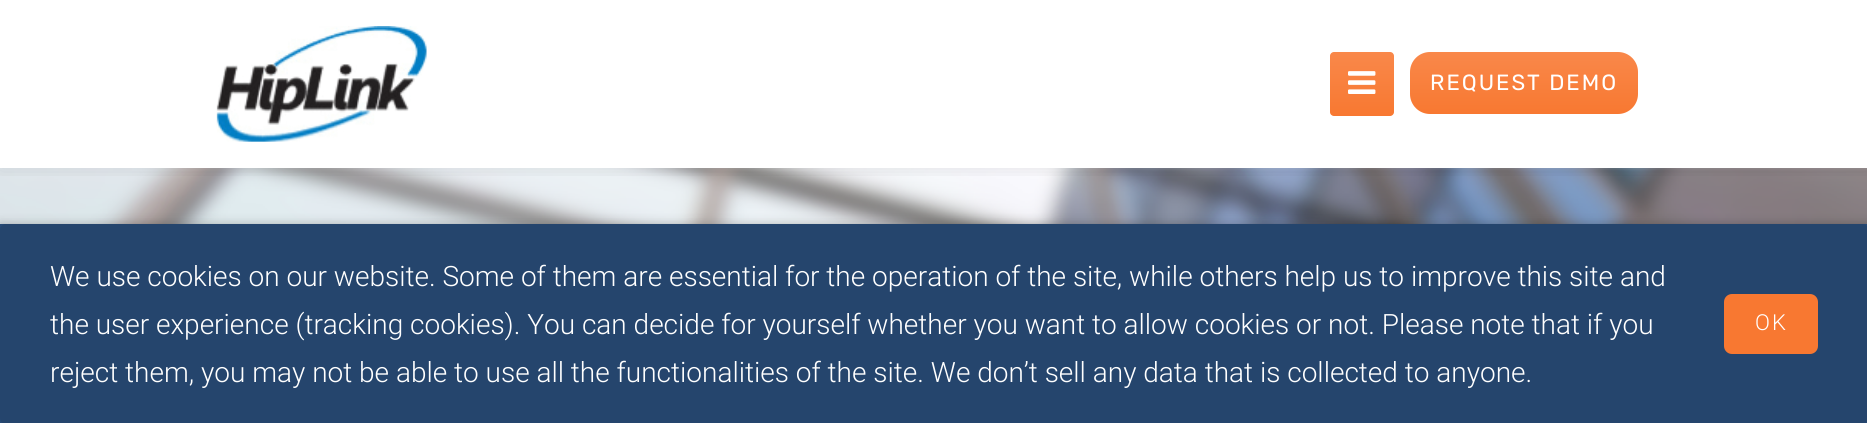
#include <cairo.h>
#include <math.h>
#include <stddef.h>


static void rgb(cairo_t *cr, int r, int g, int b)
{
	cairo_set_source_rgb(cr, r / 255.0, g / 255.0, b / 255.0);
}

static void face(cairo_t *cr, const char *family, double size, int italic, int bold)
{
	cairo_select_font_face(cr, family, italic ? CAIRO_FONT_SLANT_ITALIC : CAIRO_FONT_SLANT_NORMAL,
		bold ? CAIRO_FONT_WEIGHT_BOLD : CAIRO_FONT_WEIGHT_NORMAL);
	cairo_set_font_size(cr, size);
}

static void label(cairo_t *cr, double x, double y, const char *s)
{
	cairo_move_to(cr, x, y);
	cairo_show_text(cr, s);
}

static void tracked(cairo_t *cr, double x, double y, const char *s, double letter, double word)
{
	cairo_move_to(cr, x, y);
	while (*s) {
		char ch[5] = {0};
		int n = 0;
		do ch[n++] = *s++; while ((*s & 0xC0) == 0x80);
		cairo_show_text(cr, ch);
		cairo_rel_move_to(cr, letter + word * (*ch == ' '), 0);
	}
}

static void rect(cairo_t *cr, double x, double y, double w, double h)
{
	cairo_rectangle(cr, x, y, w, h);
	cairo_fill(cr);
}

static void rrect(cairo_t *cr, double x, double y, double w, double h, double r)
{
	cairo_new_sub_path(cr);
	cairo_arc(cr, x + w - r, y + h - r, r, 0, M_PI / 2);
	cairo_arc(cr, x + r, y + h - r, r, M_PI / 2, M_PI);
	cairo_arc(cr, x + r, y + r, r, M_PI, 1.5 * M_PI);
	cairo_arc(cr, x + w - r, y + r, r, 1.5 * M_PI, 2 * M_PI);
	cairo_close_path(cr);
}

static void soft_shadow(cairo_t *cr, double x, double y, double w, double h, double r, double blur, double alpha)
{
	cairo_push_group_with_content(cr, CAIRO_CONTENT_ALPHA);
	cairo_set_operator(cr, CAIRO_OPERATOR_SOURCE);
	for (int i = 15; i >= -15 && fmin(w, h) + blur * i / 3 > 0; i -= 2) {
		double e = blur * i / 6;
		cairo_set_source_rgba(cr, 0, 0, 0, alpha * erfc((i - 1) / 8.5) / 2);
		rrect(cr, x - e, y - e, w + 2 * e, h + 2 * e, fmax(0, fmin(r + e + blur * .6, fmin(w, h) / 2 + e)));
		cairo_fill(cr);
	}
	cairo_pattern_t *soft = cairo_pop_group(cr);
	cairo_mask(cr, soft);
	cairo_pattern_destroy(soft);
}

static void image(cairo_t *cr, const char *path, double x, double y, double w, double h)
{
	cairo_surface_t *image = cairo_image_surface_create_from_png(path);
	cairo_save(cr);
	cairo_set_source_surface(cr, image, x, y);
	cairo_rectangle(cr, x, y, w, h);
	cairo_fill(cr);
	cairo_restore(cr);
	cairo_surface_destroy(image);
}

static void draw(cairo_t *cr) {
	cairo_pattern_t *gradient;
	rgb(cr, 255, 255, 255);
	cairo_paint(cr);
	image(cr, "image2.png", 0, 168, 1867, 56);
	cairo_save(cr);
	cairo_rectangle(cr, 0, 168, 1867, 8);
	cairo_clip(cr);
	rgb(cr, 0, 0, 0);
	soft_shadow(cr, 0, 0, 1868, 168, 0, 10, 0.1);
	cairo_restore(cr);
	image(cr, "image0.png", 216, 26, 211, 116);
	gradient = cairo_pattern_create_linear(1362, 52, 1362, 116);
	cairo_pattern_add_color_stop_rgba(gradient, 0, 0.976, 0.533, 0.29, 1);
	cairo_pattern_add_color_stop_rgba(gradient, 1, 0.973, 0.471, 0.192, 1);
	cairo_set_source(cr, gradient);
	cairo_pattern_destroy(gradient);
	rrect(cr, 1330, 52, 64, 64, 4);
	cairo_fill(cr);
	image(cr, "image1.png", 1348, 71, 28, 23);
	gradient = cairo_pattern_create_linear(1524, 52, 1524, 114);
	cairo_pattern_add_color_stop_rgba(gradient, 0, 0.976, 0.533, 0.29, 1);
	cairo_pattern_add_color_stop_rgba(gradient, 1, 0.973, 0.471, 0.192, 1);
	cairo_set_source(cr, gradient);
	cairo_pattern_destroy(gradient);
	rrect(cr, 1410, 52, 228, 62, 20);
	cairo_fill(cr);
	face(cr, "Rubik", 22, 0, 0);
	rgb(cr, 255, 255, 255);
	tracked(cr, 1430, 90, "REQUEST DEMO", 2, 0);
	rgb(cr, 0, 0, 0);
	soft_shadow(cr, 0, 224, 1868, 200, 0, 5, 0.25);
	rgb(cr, 39, 74, 118);
	rect(cr, 0, 224, 1867, 199);
	rgb(cr, 37, 69, 109);
	rrect(cr, 0, 224, 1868, 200, 6);
	cairo_fill(cr);
	face(cr, "Roboto Light", 28, 0, 0);
	rgb(cr, 255, 255, 255);
	label(cr, 50, 286, "We use cookies on our website. Some of them are essential for the operation of the site, while others help us to improve this site and");
	label(cr, 50, 334, "the user experience (tracking cookies). You can decide for yourself whether you want to allow cookies or not. Please note that if you");
	label(cr, 50, 382, "reject them, you may not be able to use all the functionalities of the site. We don’t sell any data that is collected to anyone.");
	rgb(cr, 248, 120, 49);
	rrect(cr, 1724, 294, 94, 60, 8);
	cairo_fill(cr);
	face(cr, "Roboto Light", 22, 0, 0);
	rgb(cr, 255, 255, 255);
	tracked(cr, 1755, 330, "OK", 2, 0);
}

int main(void) {
	cairo_surface_t *surface = cairo_image_surface_create(CAIRO_FORMAT_RGB24, 1867, 423);
	cairo_t *cr = cairo_create(surface);
	cairo_font_options_t *options = cairo_font_options_create();
	cairo_font_options_set_hint_metrics(options, CAIRO_HINT_METRICS_OFF);
	cairo_font_options_set_hint_style(options, CAIRO_HINT_STYLE_NONE);
	cairo_set_font_options(cr, options);
	cairo_set_miter_limit(cr, 4);
	draw(cr);
	cairo_surface_write_to_png(surface, "render.png");
	cairo_font_options_destroy(options);
	cairo_destroy(cr);
	cairo_surface_destroy(surface);
	return 0;
}
